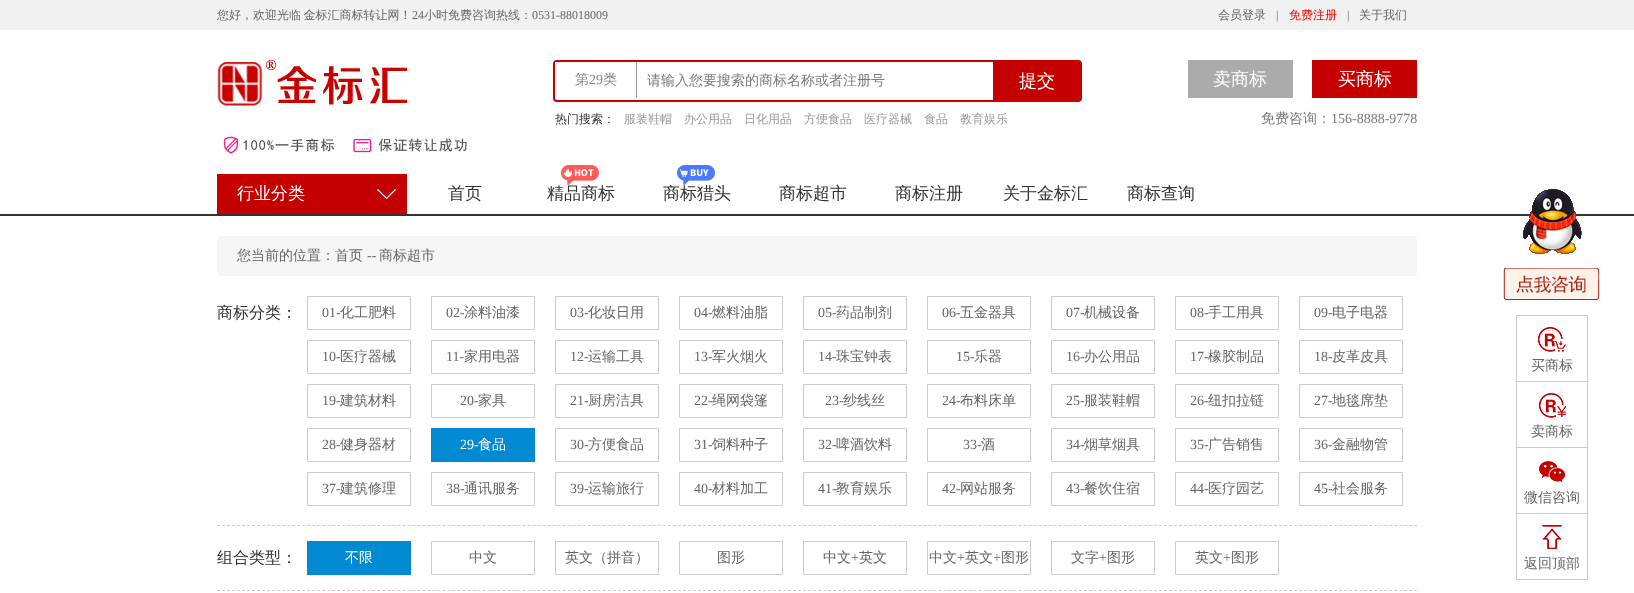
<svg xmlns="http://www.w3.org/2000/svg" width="1634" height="593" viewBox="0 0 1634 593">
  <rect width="100%" height="100%" fill="#fff"/>
  <path d="M0 0h1634v30H0z" fill="#f1f1f1"/>
  <image x="217" y="59" width="190" height="47" href="img/1.png"/>
  <image x="223" y="136" width="244" height="18" href="img/2.png"/>
  <rect x="554" y="61" width="527" height="40" rx="3" fill="none" stroke="#c40000" stroke-width="2"/>
  <path d="M555 62h2v2H555z" fill="#fff"/>
  <path d="M636 62h1v36H636z" fill="#999"/>
  <path d="M993 62h87v38H993z" fill="#c40000"/>
  <path d="M1188 60h105v38H1188z" fill="#ababab"/>
  <path d="M1312 60h105v38H1312z" fill="#c40000"/>
  <path d="M0 214h1634v2H0z" fill="#333"/>
  <path d="M217 174h190v40H217z" fill="#c40000"/>
  <image x="377" y="189" width="19" height="10" href="img/3.png"/>
  <rect x="217" y="236" width="1200" height="40" rx="4" fill="#f5f5f5"/>
  <path d="M217 525.5H1417" fill="none" stroke="#ccc" stroke-dasharray="3 2.01"/>
  <path d="M307.5 296.5h103v33H307.5z" fill="none" stroke="#ccc"/>
  <path d="M431.5 296.5h103v33H431.5z" fill="none" stroke="#ccc"/>
  <path d="M555.5 296.5h103v33H555.5z" fill="none" stroke="#ccc"/>
  <path d="M679.5 296.5h103v33H679.5z" fill="none" stroke="#ccc"/>
  <path d="M803.5 296.5h103v33H803.5z" fill="none" stroke="#ccc"/>
  <path d="M927.5 296.5h103v33H927.5z" fill="none" stroke="#ccc"/>
  <path d="M1051.5 296.5h103v33H1051.5z" fill="none" stroke="#ccc"/>
  <path d="M1175.5 296.5h103v33H1175.5z" fill="none" stroke="#ccc"/>
  <path d="M1299.5 296.5h103v33H1299.5z" fill="none" stroke="#ccc"/>
  <path d="M307.5 340.5h103v33H307.5z" fill="none" stroke="#ccc"/>
  <path d="M431.5 340.5h103v33H431.5z" fill="none" stroke="#ccc"/>
  <path d="M555.5 340.5h103v33H555.5z" fill="none" stroke="#ccc"/>
  <path d="M679.5 340.5h103v33H679.5z" fill="none" stroke="#ccc"/>
  <path d="M803.5 340.5h103v33H803.5z" fill="none" stroke="#ccc"/>
  <path d="M927.5 340.5h103v33H927.5z" fill="none" stroke="#ccc"/>
  <path d="M1051.5 340.5h103v33H1051.5z" fill="none" stroke="#ccc"/>
  <path d="M1175.5 340.5h103v33H1175.5z" fill="none" stroke="#ccc"/>
  <path d="M1299.5 340.5h103v33H1299.5z" fill="none" stroke="#ccc"/>
  <path d="M307.5 384.5h103v33H307.5z" fill="none" stroke="#ccc"/>
  <path d="M431.5 384.5h103v33H431.5z" fill="none" stroke="#ccc"/>
  <path d="M555.5 384.5h103v33H555.5z" fill="none" stroke="#ccc"/>
  <path d="M679.5 384.5h103v33H679.5z" fill="none" stroke="#ccc"/>
  <path d="M803.5 384.5h103v33H803.5z" fill="none" stroke="#ccc"/>
  <path d="M927.5 384.5h103v33H927.5z" fill="none" stroke="#ccc"/>
  <path d="M1051.5 384.5h103v33H1051.5z" fill="none" stroke="#ccc"/>
  <path d="M1175.5 384.5h103v33H1175.5z" fill="none" stroke="#ccc"/>
  <path d="M1299.5 384.5h103v33H1299.5z" fill="none" stroke="#ccc"/>
  <path d="M307.5 428.5h103v33H307.5z" fill="none" stroke="#ccc"/>
  <path d="M431 428h104v34H431z" fill="#0189d1"/>
  <path d="M555.5 428.5h103v33H555.5z" fill="none" stroke="#ccc"/>
  <path d="M679.5 428.5h103v33H679.5z" fill="none" stroke="#ccc"/>
  <path d="M803.5 428.5h103v33H803.5z" fill="none" stroke="#ccc"/>
  <path d="M927.5 428.5h103v33H927.5z" fill="none" stroke="#ccc"/>
  <path d="M1051.5 428.5h103v33H1051.5z" fill="none" stroke="#ccc"/>
  <path d="M1175.5 428.5h103v33H1175.5z" fill="none" stroke="#ccc"/>
  <path d="M1299.5 428.5h103v33H1299.5z" fill="none" stroke="#ccc"/>
  <path d="M307.5 472.5h103v33H307.5z" fill="none" stroke="#ccc"/>
  <path d="M431.5 472.5h103v33H431.5z" fill="none" stroke="#ccc"/>
  <path d="M555.5 472.5h103v33H555.5z" fill="none" stroke="#ccc"/>
  <path d="M679.5 472.5h103v33H679.5z" fill="none" stroke="#ccc"/>
  <path d="M803.5 472.5h103v33H803.5z" fill="none" stroke="#ccc"/>
  <path d="M927.5 472.5h103v33H927.5z" fill="none" stroke="#ccc"/>
  <path d="M1051.5 472.5h103v33H1051.5z" fill="none" stroke="#ccc"/>
  <path d="M1175.5 472.5h103v33H1175.5z" fill="none" stroke="#ccc"/>
  <path d="M1299.5 472.5h103v33H1299.5z" fill="none" stroke="#ccc"/>
  <path d="M217 590.5H1417" fill="none" stroke="#ccc" stroke-dasharray="3 2.01"/>
  <path d="M307 541h104v34H307z" fill="#0189d1"/>
  <path d="M431.5 541.5h103v33H431.5z" fill="none" stroke="#ccc"/>
  <path d="M555.5 541.5h103v33H555.5z" fill="none" stroke="#ccc"/>
  <path d="M679.5 541.5h103v33H679.5z" fill="none" stroke="#ccc"/>
  <path d="M803.5 541.5h103v33H803.5z" fill="none" stroke="#ccc"/>
  <path d="M927.5 541.5h103v33H927.5z" fill="none" stroke="#ccc"/>
  <path d="M1051.5 541.5h103v33H1051.5z" fill="none" stroke="#ccc"/>
  <path d="M1175.5 541.5h103v33H1175.5z" fill="none" stroke="#ccc"/>
  <image x="1503" y="189" width="97" height="111" href="img/6.png"/>
  <path d="M1516.5 315.5h71v264H1516.5z" fill="none" stroke="#ccc"/>
  <path d="M1517 381h70v1H1517z" fill="#ccc"/>
  <image x="1538" y="327" width="28" height="25" href="img/7.png"/>
  <path d="M1517 447h70v1H1517z" fill="#ccc"/>
  <image x="1539" y="393" width="27" height="25" href="img/8.png"/>
  <path d="M1517 513h70v1H1517z" fill="#ccc"/>
  <image x="1539" y="461" width="26" height="21" href="img/9.png"/>
  <image x="1542" y="525" width="20" height="24" href="img/10.png"/>
  <text x="217" y="19" word-spacing="-1" font-family="WenQuanYi Zen Hei" font-size="12" font-weight="500" fill="#666">您好，欢迎光临 金标汇商标转让网！</text>
  <text x="412" y="19" font-family="Liberation Serif" font-size="12" fill="#666">24</text>
  <text x="424" y="19" font-family="WenQuanYi Zen Hei" font-size="12" font-weight="500" fill="#666">小时免费咨询热线：</text>
  <text x="532" y="19" font-family="Liberation Serif" font-size="12" fill="#666">0531-88018009</text>
  <text x="1218" y="19" font-family="WenQuanYi Zen Hei" font-size="12" font-weight="500" fill="#666">会员登录</text>
  <text x="1276" y="19" font-family="Liberation Serif" font-size="12" fill="#666">|</text>
  <text x="1289" y="19" font-family="WenQuanYi Zen Hei" font-size="12" font-weight="500" fill="#f00">免费注册</text>
  <text x="1347" y="19" font-family="Liberation Serif" font-size="12" fill="#666">|</text>
  <text x="1359" y="19" font-family="WenQuanYi Zen Hei" font-size="12" font-weight="500" fill="#666">关于我们</text>
  <text x="575" y="84" font-family="WenQuanYi Zen Hei" font-size="14" font-weight="500" fill="#868686">第</text>
  <text x="589" y="84" font-family="Liberation Serif" font-size="14" fill="#868686">29</text>
  <text x="603" y="84" font-family="WenQuanYi Zen Hei" font-size="14" font-weight="500" fill="#868686">类</text>
  <text x="647" y="85" font-family="WenQuanYi Zen Hei" font-size="14" font-weight="500" fill="#7a7a7a">请输入您要搜索的商标名称或者注册号</text>
  <text x="1019" y="87" font-family="WenQuanYi Zen Hei" font-size="18" font-weight="500" fill="#fff">提交</text>
  <text x="555" y="123" font-family="WenQuanYi Zen Hei" font-size="12" font-weight="500" fill="#333">热门搜索：</text>
  <g font-family="WenQuanYi Zen Hei" font-size="12" font-weight="500" fill="#999">
    <text x="624" y="123">服装鞋帽</text>
    <text x="684" y="123">办公用品</text>
    <text x="744" y="123">日化用品</text>
    <text x="804" y="123">方便食品</text>
    <text x="864" y="123">医疗器械</text>
    <text x="924" y="123">食品</text>
    <text x="960" y="123">教育娱乐</text>
  </g>
  <g font-family="WenQuanYi Zen Hei" font-size="18" font-weight="500" fill="#fff">
    <text x="1213" y="85">卖商标</text>
    <text x="1338" y="85">买商标</text>
  </g>
  <text x="1261" y="123" font-family="WenQuanYi Zen Hei" font-size="14" font-weight="500" fill="#7a7a7a">免费咨询：</text>
  <text x="1331" y="123" font-family="Liberation Serif" font-size="14" fill="#7a7a7a">156-8888-9778</text>
  <text x="237" y="199" font-family="WenQuanYi Zen Hei" font-size="17" font-weight="500" fill="#fff">行业分类</text>
  <g font-family="WenQuanYi Zen Hei" font-size="17" font-weight="500" fill="#333">
    <text x="448" y="199">首页</text>
    <text x="547" y="199">精品商标</text>
  </g>
  <image x="561" y="165" width="38" height="20" href="img/4.png"/>
  <text x="663" y="199" font-family="WenQuanYi Zen Hei" font-size="17" font-weight="500" fill="#333">商标猎头</text>
  <image x="677" y="165" width="38" height="20" href="img/5.png"/>
  <g font-family="WenQuanYi Zen Hei" font-size="17" font-weight="500" fill="#333">
    <text x="779" y="199">商标超市</text>
    <text x="895" y="199">商标注册</text>
    <text x="1003" y="199">关于金标汇</text>
    <text x="1127" y="199">商标查询</text>
  </g>
  <text x="237" y="260" font-family="WenQuanYi Zen Hei" font-size="14" font-weight="500" fill="#666">您当前的位置：首页</text>
  <text x="367" y="260" font-family="Liberation Serif" font-size="14" fill="#666">--</text>
  <text x="379" y="260" font-family="WenQuanYi Zen Hei" font-size="14" font-weight="500" fill="#666">商标超市</text>
  <text x="217" y="318" font-family="WenQuanYi Zen Hei" font-size="16" font-weight="500" fill="#333">商标分类：</text>
  <text x="322" y="317" font-family="Liberation Serif" font-size="14" fill="#666">01-</text>
  <text x="340" y="317" font-family="WenQuanYi Zen Hei" font-size="14" font-weight="500" fill="#666">化工肥料</text>
  <text x="446" y="317" font-family="Liberation Serif" font-size="14" fill="#666">02-</text>
  <text x="464" y="317" font-family="WenQuanYi Zen Hei" font-size="14" font-weight="500" fill="#666">涂料油漆</text>
  <text x="570" y="317" font-family="Liberation Serif" font-size="14" fill="#666">03-</text>
  <text x="588" y="317" font-family="WenQuanYi Zen Hei" font-size="14" font-weight="500" fill="#666">化妆日用</text>
  <text x="694" y="317" font-family="Liberation Serif" font-size="14" fill="#666">04-</text>
  <text x="712" y="317" font-family="WenQuanYi Zen Hei" font-size="14" font-weight="500" fill="#666">燃料油脂</text>
  <text x="818" y="317" font-family="Liberation Serif" font-size="14" fill="#666">05-</text>
  <text x="836" y="317" font-family="WenQuanYi Zen Hei" font-size="14" font-weight="500" fill="#666">药品制剂</text>
  <text x="942" y="317" font-family="Liberation Serif" font-size="14" fill="#666">06-</text>
  <text x="960" y="317" font-family="WenQuanYi Zen Hei" font-size="14" font-weight="500" fill="#666">五金器具</text>
  <text x="1066" y="317" font-family="Liberation Serif" font-size="14" fill="#666">07-</text>
  <text x="1084" y="317" font-family="WenQuanYi Zen Hei" font-size="14" font-weight="500" fill="#666">机械设备</text>
  <text x="1190" y="317" font-family="Liberation Serif" font-size="14" fill="#666">08-</text>
  <text x="1208" y="317" font-family="WenQuanYi Zen Hei" font-size="14" font-weight="500" fill="#666">手工用具</text>
  <text x="1314" y="317" font-family="Liberation Serif" font-size="14" fill="#666">09-</text>
  <text x="1332" y="317" font-family="WenQuanYi Zen Hei" font-size="14" font-weight="500" fill="#666">电子电器</text>
  <text x="322" y="361" font-family="Liberation Serif" font-size="14" fill="#666">10-</text>
  <text x="340" y="361" font-family="WenQuanYi Zen Hei" font-size="14" font-weight="500" fill="#666">医疗器械</text>
  <text x="446" y="361" font-family="Liberation Serif" font-size="14" fill="#666">11-</text>
  <text x="464" y="361" font-family="WenQuanYi Zen Hei" font-size="14" font-weight="500" fill="#666">家用电器</text>
  <text x="570" y="361" font-family="Liberation Serif" font-size="14" fill="#666">12-</text>
  <text x="588" y="361" font-family="WenQuanYi Zen Hei" font-size="14" font-weight="500" fill="#666">运输工具</text>
  <text x="694" y="361" font-family="Liberation Serif" font-size="14" fill="#666">13-</text>
  <text x="712" y="361" font-family="WenQuanYi Zen Hei" font-size="14" font-weight="500" fill="#666">军火烟火</text>
  <text x="818" y="361" font-family="Liberation Serif" font-size="14" fill="#666">14-</text>
  <text x="836" y="361" font-family="WenQuanYi Zen Hei" font-size="14" font-weight="500" fill="#666">珠宝钟表</text>
  <text x="956" y="361" font-family="Liberation Serif" font-size="14" fill="#666">15-</text>
  <text x="974" y="361" font-family="WenQuanYi Zen Hei" font-size="14" font-weight="500" fill="#666">乐器</text>
  <text x="1066" y="361" font-family="Liberation Serif" font-size="14" fill="#666">16-</text>
  <text x="1084" y="361" font-family="WenQuanYi Zen Hei" font-size="14" font-weight="500" fill="#666">办公用品</text>
  <text x="1190" y="361" font-family="Liberation Serif" font-size="14" fill="#666">17-</text>
  <text x="1208" y="361" font-family="WenQuanYi Zen Hei" font-size="14" font-weight="500" fill="#666">橡胶制品</text>
  <text x="1314" y="361" font-family="Liberation Serif" font-size="14" fill="#666">18-</text>
  <text x="1332" y="361" font-family="WenQuanYi Zen Hei" font-size="14" font-weight="500" fill="#666">皮革皮具</text>
  <text x="322" y="405" font-family="Liberation Serif" font-size="14" fill="#666">19-</text>
  <text x="340" y="405" font-family="WenQuanYi Zen Hei" font-size="14" font-weight="500" fill="#666">建筑材料</text>
  <text x="460" y="405" font-family="Liberation Serif" font-size="14" fill="#666">20-</text>
  <text x="478" y="405" font-family="WenQuanYi Zen Hei" font-size="14" font-weight="500" fill="#666">家具</text>
  <text x="570" y="405" font-family="Liberation Serif" font-size="14" fill="#666">21-</text>
  <text x="588" y="405" font-family="WenQuanYi Zen Hei" font-size="14" font-weight="500" fill="#666">厨房洁具</text>
  <text x="694" y="405" font-family="Liberation Serif" font-size="14" fill="#666">22-</text>
  <text x="712" y="405" font-family="WenQuanYi Zen Hei" font-size="14" font-weight="500" fill="#666">绳网袋篷</text>
  <text x="825" y="405" font-family="Liberation Serif" font-size="14" fill="#666">23-</text>
  <text x="843" y="405" font-family="WenQuanYi Zen Hei" font-size="14" font-weight="500" fill="#666">纱线丝</text>
  <text x="942" y="405" font-family="Liberation Serif" font-size="14" fill="#666">24-</text>
  <text x="960" y="405" font-family="WenQuanYi Zen Hei" font-size="14" font-weight="500" fill="#666">布料床单</text>
  <text x="1066" y="405" font-family="Liberation Serif" font-size="14" fill="#666">25-</text>
  <text x="1084" y="405" font-family="WenQuanYi Zen Hei" font-size="14" font-weight="500" fill="#666">服装鞋帽</text>
  <text x="1190" y="405" font-family="Liberation Serif" font-size="14" fill="#666">26-</text>
  <text x="1208" y="405" font-family="WenQuanYi Zen Hei" font-size="14" font-weight="500" fill="#666">纽扣拉链</text>
  <text x="1314" y="405" font-family="Liberation Serif" font-size="14" fill="#666">27-</text>
  <text x="1332" y="405" font-family="WenQuanYi Zen Hei" font-size="14" font-weight="500" fill="#666">地毯席垫</text>
  <text x="322" y="449" font-family="Liberation Serif" font-size="14" fill="#666">28-</text>
  <text x="340" y="449" font-family="WenQuanYi Zen Hei" font-size="14" font-weight="500" fill="#666">健身器材</text>
  <text x="460" y="449" font-family="Liberation Serif" font-size="14" fill="#fff">29-</text>
  <text x="478" y="449" font-family="WenQuanYi Zen Hei" font-size="14" font-weight="500" fill="#fff">食品</text>
  <text x="570" y="449" font-family="Liberation Serif" font-size="14" fill="#666">30-</text>
  <text x="588" y="449" font-family="WenQuanYi Zen Hei" font-size="14" font-weight="500" fill="#666">方便食品</text>
  <text x="694" y="449" font-family="Liberation Serif" font-size="14" fill="#666">31-</text>
  <text x="712" y="449" font-family="WenQuanYi Zen Hei" font-size="14" font-weight="500" fill="#666">饲料种子</text>
  <text x="818" y="449" font-family="Liberation Serif" font-size="14" fill="#666">32-</text>
  <text x="836" y="449" font-family="WenQuanYi Zen Hei" font-size="14" font-weight="500" fill="#666">啤酒饮料</text>
  <text x="963" y="449" font-family="Liberation Serif" font-size="14" fill="#666">33-</text>
  <text x="981" y="449" font-family="WenQuanYi Zen Hei" font-size="14" font-weight="500" fill="#666">酒</text>
  <text x="1066" y="449" font-family="Liberation Serif" font-size="14" fill="#666">34-</text>
  <text x="1084" y="449" font-family="WenQuanYi Zen Hei" font-size="14" font-weight="500" fill="#666">烟草烟具</text>
  <text x="1190" y="449" font-family="Liberation Serif" font-size="14" fill="#666">35-</text>
  <text x="1208" y="449" font-family="WenQuanYi Zen Hei" font-size="14" font-weight="500" fill="#666">广告销售</text>
  <text x="1314" y="449" font-family="Liberation Serif" font-size="14" fill="#666">36-</text>
  <text x="1332" y="449" font-family="WenQuanYi Zen Hei" font-size="14" font-weight="500" fill="#666">金融物管</text>
  <text x="322" y="493" font-family="Liberation Serif" font-size="14" fill="#666">37-</text>
  <text x="340" y="493" font-family="WenQuanYi Zen Hei" font-size="14" font-weight="500" fill="#666">建筑修理</text>
  <text x="446" y="493" font-family="Liberation Serif" font-size="14" fill="#666">38-</text>
  <text x="464" y="493" font-family="WenQuanYi Zen Hei" font-size="14" font-weight="500" fill="#666">通讯服务</text>
  <text x="570" y="493" font-family="Liberation Serif" font-size="14" fill="#666">39-</text>
  <text x="588" y="493" font-family="WenQuanYi Zen Hei" font-size="14" font-weight="500" fill="#666">运输旅行</text>
  <text x="694" y="493" font-family="Liberation Serif" font-size="14" fill="#666">40-</text>
  <text x="712" y="493" font-family="WenQuanYi Zen Hei" font-size="14" font-weight="500" fill="#666">材料加工</text>
  <text x="818" y="493" font-family="Liberation Serif" font-size="14" fill="#666">41-</text>
  <text x="836" y="493" font-family="WenQuanYi Zen Hei" font-size="14" font-weight="500" fill="#666">教育娱乐</text>
  <text x="942" y="493" font-family="Liberation Serif" font-size="14" fill="#666">42-</text>
  <text x="960" y="493" font-family="WenQuanYi Zen Hei" font-size="14" font-weight="500" fill="#666">网站服务</text>
  <text x="1066" y="493" font-family="Liberation Serif" font-size="14" fill="#666">43-</text>
  <text x="1084" y="493" font-family="WenQuanYi Zen Hei" font-size="14" font-weight="500" fill="#666">餐饮住宿</text>
  <text x="1190" y="493" font-family="Liberation Serif" font-size="14" fill="#666">44-</text>
  <text x="1208" y="493" font-family="WenQuanYi Zen Hei" font-size="14" font-weight="500" fill="#666">医疗园艺</text>
  <text x="1314" y="493" font-family="Liberation Serif" font-size="14" fill="#666">45-</text>
  <text x="1332" y="493" font-family="WenQuanYi Zen Hei" font-size="14" font-weight="500" fill="#666">社会服务</text>
  <text x="217" y="563" font-family="WenQuanYi Zen Hei" font-size="16" font-weight="500" fill="#333">组合类型：</text>
  <text x="345" y="562" font-family="WenQuanYi Zen Hei" font-size="14" font-weight="500" fill="#fff">不限</text>
  <g font-family="WenQuanYi Zen Hei" font-size="14" font-weight="500" fill="#666">
    <text x="469" y="562">中文</text>
    <text x="565" y="562">英文（拼音）</text>
    <text x="717" y="562">图形</text>
    <text x="823" y="562">中文</text>
  </g>
  <text x="851" y="562" font-family="Liberation Serif" font-size="14" fill="#666">+</text>
  <g font-family="WenQuanYi Zen Hei" font-size="14" font-weight="500" fill="#666">
    <text x="859" y="562">英文</text>
    <text x="929" y="562">中文</text>
  </g>
  <text x="957" y="562" font-family="Liberation Serif" font-size="14" fill="#666">+</text>
  <text x="965" y="562" font-family="WenQuanYi Zen Hei" font-size="14" font-weight="500" fill="#666">英文</text>
  <text x="993" y="562" font-family="Liberation Serif" font-size="14" fill="#666">+</text>
  <g font-family="WenQuanYi Zen Hei" font-size="14" font-weight="500" fill="#666">
    <text x="1001" y="562">图形</text>
    <text x="1071" y="562">文字</text>
  </g>
  <text x="1099" y="562" font-family="Liberation Serif" font-size="14" fill="#666">+</text>
  <g font-family="WenQuanYi Zen Hei" font-size="14" font-weight="500" fill="#666">
    <text x="1107" y="562">图形</text>
    <text x="1195" y="562">英文</text>
  </g>
  <text x="1223" y="562" font-family="Liberation Serif" font-size="14" fill="#666">+</text>
  <g font-family="WenQuanYi Zen Hei" font-size="14" font-weight="500" fill="#666">
    <text x="1231" y="562">图形</text>
    <text x="1531" y="370">买商标</text>
    <text x="1531" y="436">卖商标</text>
    <text x="1524" y="502">微信咨询</text>
    <text x="1524" y="568">返回顶部</text>
  </g>
</svg>
